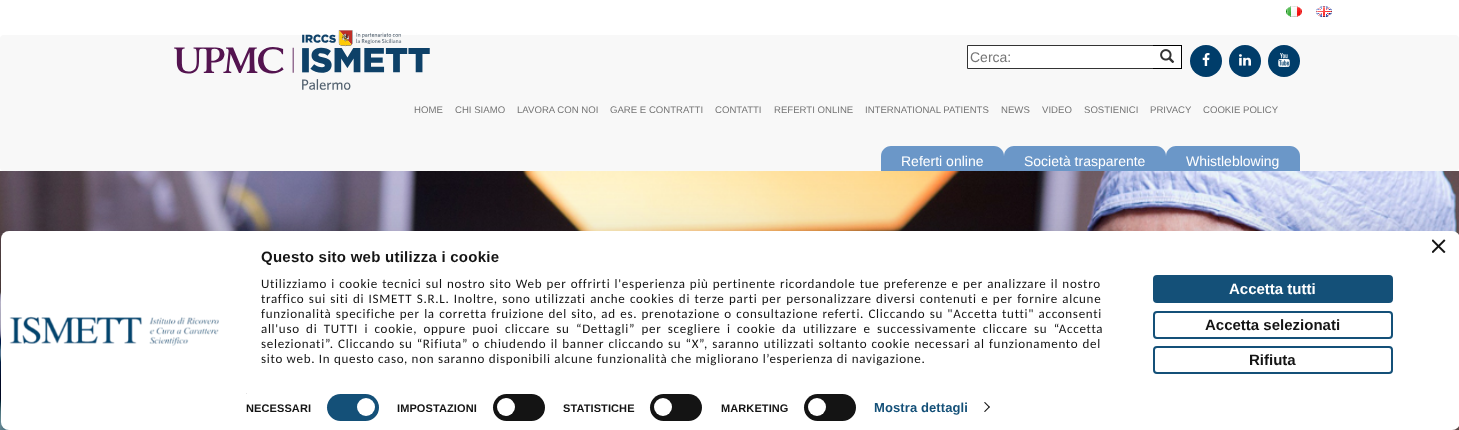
<svg xmlns="http://www.w3.org/2000/svg" width="1459" height="430" viewBox="0 0 1459 430">
  <defs>
    <clipPath id="clip1"><path d="M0 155H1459V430H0ZM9 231H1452C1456.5 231 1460 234.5 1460 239V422C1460 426.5 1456.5 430 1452 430H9C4.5 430 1 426.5 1 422V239C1 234.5 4.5 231 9 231Z" clip-rule="evenodd"/></clipPath>
  </defs>
  <rect width="100%" height="100%" fill="#fff"/>
  <image x="1286" y="6" width="16" height="11" href="img/1.png"/>
  <image x="1316" y="6" width="16" height="11" href="img/2.png"/>
  <rect y="35" width="1459" height="136" rx="4" fill="#f8f8f8"/>
  <image x="174" y="30" width="256" height="60" href="img/3.png"/>
  <path d="M967.5 45.5h186v23H967.5z" fill="#fff" stroke="#333"/>
  <path d="M1153 46h28v22H1153z" fill="#fff"/>
  <path d="M1153 45h29v1H1153z" fill="#000"/>
  <path d="M1181 45h1v24H1181z" fill="#000"/>
  <path d="M1153 68h29v1H1153z" fill="#000"/>
  <image x="1160" y="49" width="15" height="14" href="img/4.png"/>
  <circle cx="1206" cy="61" r="16" fill="#003d6a"/>
  <image x="1202" y="53" width="8" height="13" href="img/5.png"/>
  <circle cx="1245" cy="61" r="16" fill="#003d6a"/>
  <image x="1239" y="54" width="12" height="12" href="img/6.png"/>
  <circle cx="1284" cy="61" r="16" fill="#003d6a"/>
  <image x="1278" y="53" width="12" height="14" href="img/7.png"/>
  <path d="M891 146H994C999.5 146 1004 150.5 1004 156V171H881V156C881 150.5 885.5 146 891 146Z" fill="#6b97c8"/>
  <path d="M1014 146H1156C1161.5 146 1166 150.5 1166 156V171H1004V156C1004 150.5 1008.5 146 1014 146Z" fill="#6b97c8"/>
  <path d="M1176 146H1290C1295.5 146 1300 150.5 1300 156V171H1166V156C1166 150.5 1170.5 146 1176 146Z" fill="#6b97c8"/>
  <image x="0" y="171" width="1459" height="259" href="img/8.png"/>
  <g clip-path="url(#clip1)">
    <rect x="1" y="261" width="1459" height="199" rx="8" fill="#0000004d" filter="blur(35px)"/>
  </g>
  <rect x="1" y="231" width="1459" height="199" rx="8" fill="#fff"/>
  <image x="1432" y="239" width="14" height="14" href="img/9.png"/>
  <image x="9" y="316" width="210" height="30" href="img/10.png"/>
  <path d="M246 393h1v1H246z" fill="#e5e5e5"/>
  <rect x="327" y="394" width="52" height="27" rx="13.5" fill="#145078"/>
  <circle cx="366" cy="407" r="9" fill="#fff"/>
  <rect x="493" y="394" width="52" height="27" rx="13.5" fill="#141414"/>
  <circle cx="506" cy="407" r="9" fill="#fff"/>
  <rect x="650" y="394" width="52" height="27" rx="13.5" fill="#141414"/>
  <circle cx="663" cy="407" r="9" fill="#fff"/>
  <rect x="804" y="394" width="52" height="27" rx="13.5" fill="#141414"/>
  <circle cx="817" cy="407" r="9" fill="#fff"/>
  <path d="M985 402L990 407L989 407.5L984 402.5Z" fill="#141414"/>
  <path d="M989 406.5L990 407L985 412L984 411.5Z" fill="#141414"/>
  <rect x="1154" y="276" width="238" height="26" rx="3" fill="#145078" stroke="#145078" stroke-width="2"/>
  <rect x="1154" y="312" width="238" height="26" rx="3" fill="none" stroke="#145078" stroke-width="2"/>
  <rect x="1154" y="347" width="238" height="26" rx="3" fill="none" stroke="#145078" stroke-width="2"/>
  <text x="970" y="62" font-family="Liberation Sans" font-size="14" fill="#757575">Cerca:</text>
  <g font-family="Liberation Sans" font-size="9.6" fill="#757575">
    <text x="414" y="113">HOME</text>
    <text x="455" y="113">CHI SIAMO</text>
    <text x="517" y="113">LAVORA CON NOI</text>
    <text x="610" y="113">GARE E CONTRATTI</text>
    <text x="715" y="113">CONTATTI</text>
    <text x="774" y="113">REFERTI ONLINE</text>
    <text x="865" y="113">INTERNATIONAL PATIENTS</text>
    <text x="1001" y="113">NEWS</text>
    <text x="1042" y="113">VIDEO</text>
    <text x="1084" y="113">SOSTIENICI</text>
    <text x="1150" y="113">PRIVACY</text>
    <text x="1203" y="113">COOKIE POLICY</text>
  </g>
  <g font-family="Liberation Sans" font-size="14" fill="#fff">
    <text x="901" y="166">Referti online</text>
    <text x="1024" y="166">Società trasparente</text>
    <text x="1186" y="166">Whistleblowing</text>
  </g>
  <text x="261" y="262" font-family="Liberation Sans" font-size="15" font-weight="bold" letter-spacing="0.25" fill="#141414">Questo sito web utilizza i cookie</text>
  <g font-family="Carlito" font-size="13" letter-spacing="0.7" fill="#141414">
    <text x="261" y="288" word-spacing="0.6">Utilizziamo i cookie tecnici sul nostro sito Web per offrirti l'esperienza più pertinente ricordandole tue preferenze e per analizzare il nostro</text>
    <text x="261" y="303" word-spacing="0.8">traffico sui siti di ISMETT S.R.L. Inoltre, sono utilizzati anche cookies di terze parti per personalizzare diversi contenuti e per fornire alcune</text>
    <text x="261" y="318" word-spacing="0.75">funzionalità specifiche per la corretta fruizione del sito, ad es. prenotazione o consultazione referti. Cliccando su "Accetta tutti" acconsenti</text>
    <text x="261" y="333" word-spacing="2.75">all'uso di TUTTI i cookie, oppure puoi cliccare su “Dettagli” per scegliere i cookie da utilizzare e successivamente cliccare su “Accetta</text>
    <text x="261" y="348" word-spacing="0.6">selezionati”. Cliccando su “Rifiuta” o chiudendo il banner cliccando su “X”, saranno utilizzati soltanto cookie necessari al funzionamento del</text>
    <text x="261" y="363">sito web. In questo caso, non saranno disponibili alcune funzionalità che migliorano l’esperienza di navigazione.</text>
  </g>
  <g font-family="Liberation Sans" font-size="11" font-weight="bold" letter-spacing="0.1" fill="#141414">
    <text x="246" y="412">NECESSARI</text>
    <text x="397" y="412">IMPOSTAZIONI</text>
    <text x="563" y="412">STATISTICHE</text>
    <text x="721" y="412">MARKETING</text>
  </g>
  <text x="874" y="412" font-family="Liberation Sans" font-size="13" font-weight="bold" letter-spacing="0.1" fill="#145078">Mostra dettagli</text>
  <text x="1229" y="294" font-family="Liberation Sans" font-size="15" font-weight="bold" fill="#fff">Accetta tutti</text>
  <g font-family="Liberation Sans" font-size="15" font-weight="bold" fill="#141414">
    <text x="1205" y="330">Accetta selezionati</text>
    <text x="1249" y="365">Rifiuta</text>
  </g>
</svg>
